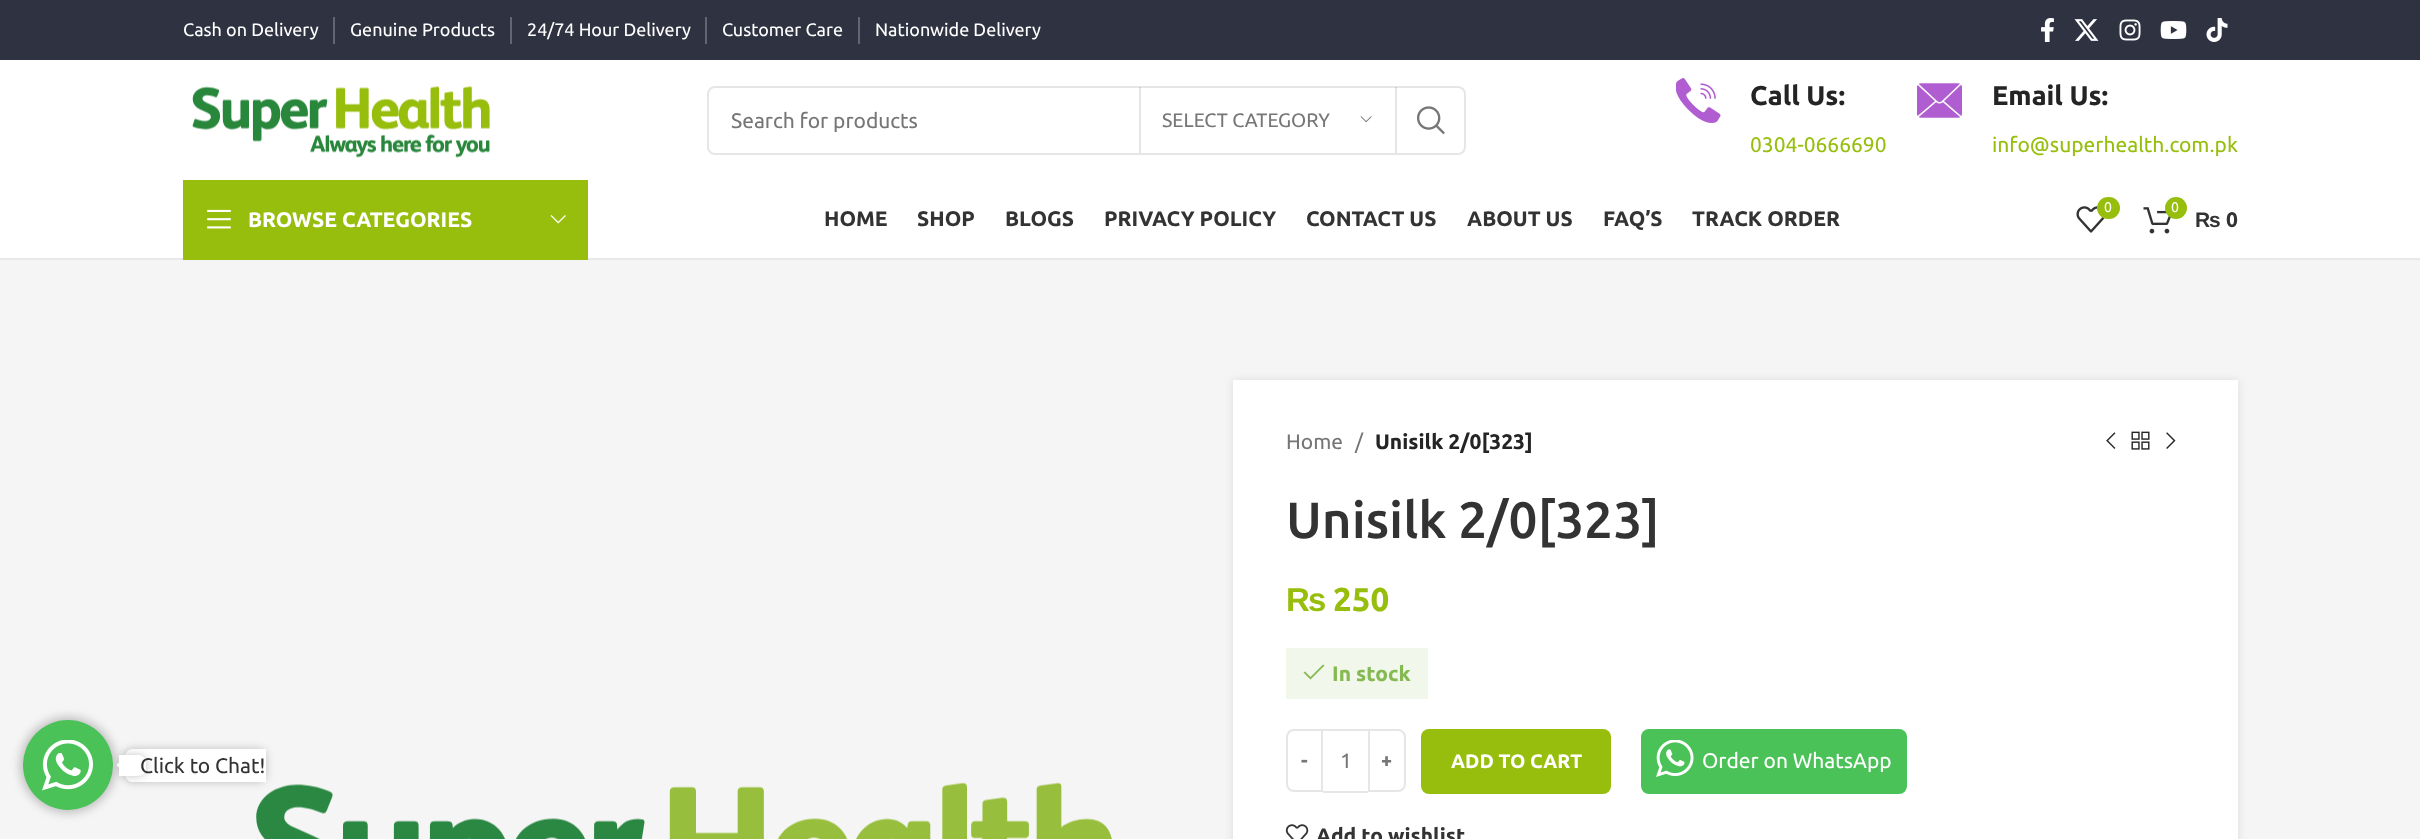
<svg xmlns="http://www.w3.org/2000/svg" width="2420" height="839" viewBox="0 0 2420 839">
  <rect width="100%" height="100%" fill="#fff"/>
  <path d="M0 0h2420v60H0z" fill="#2f3241"/>
  <path d="M333 17h2v27H333z" fill="#636571"/>
  <path d="M510 17h2v27H510z" fill="#636571"/>
  <path d="M705 17h2v27H705z" fill="#636571"/>
  <path d="M858 17h2v27H858z" fill="#636571"/>
  <image x="2041" y="18" width="13" height="24" href="img/1.png"/>
  <image x="2074" y="19" width="25" height="22" href="img/2.png"/>
  <image x="2119" y="19" width="22" height="22" href="img/3.png"/>
  <image x="2160" y="21" width="27" height="18" href="img/4.png"/>
  <image x="2206" y="18" width="22" height="24" href="img/5.png"/>
  <image x="192" y="86" width="298" height="72" href="img/6.png"/>
  <rect x="708" y="87" width="757" height="67" rx="7" fill="none" stroke="#e6e6e6" stroke-width="2"/>
  <path d="M1395 87h2v66H1395z" fill="#0000001a"/>
  <path d="M1139 87h2v66H1139z" fill="#0000001a"/>
  <image x="1360" y="116" width="12" height="7" href="img/7.png"/>
  <image x="1417" y="106" width="28" height="29" href="img/8.png"/>
  <image x="1676" y="78" width="45" height="45" href="img/9.png"/>
  <image x="1917" y="83" width="45" height="35" href="img/10.png"/>
  <path d="M0 258h2420v2H0z" fill="#e8e8e8"/>
  <path d="M183 180h405v80H183z" fill="#97be0d"/>
  <image x="207" y="209" width="24" height="20" href="img/11.png"/>
  <image x="550" y="215" width="16" height="9" href="img/12.png"/>
  <image x="2076" y="206" width="29" height="27" href="img/13.png"/>
  <rect x="2097" y="197" width="23" height="22" rx="11" fill="#97be0d"/>
  <image x="2143" y="207" width="28" height="27" href="img/14.png"/>
  <circle cx="2176" cy="208" r="11" fill="#97be0d"/>
  <path d="M0 260h2420v579H0z" fill="#f5f5f5"/>
  <image x="256" y="782" width="856" height="57" href="img/15.png"/>
  <path d="M1233 380h1005v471H1233z" fill="#0000001a" filter="blur(4px)"/>
  <path d="M1233 380h1005v459H1233z" fill="#fff"/>
  <image x="2106" y="432" width="10" height="17" href="img/16.png"/>
  <image x="2131" y="431" width="19" height="19" href="img/17.png"/>
  <image x="2166" y="432" width="10" height="17" href="img/18.png"/>
  <path d="M1286 648h142v51H1286z" fill="#f1f7eb"/>
  <path d="M1324.5 665.5L1323 664.5L1310.5 677L1305 671.5L1303.5 672.5L1310.5 679.5Z" fill="#85b951"/>
  <path d="M1294 730H1322V791H1294C1290 791 1287 788 1287 784V737C1287 733 1290 730 1294 730Z" fill="none" stroke="#e6e6e6" stroke-width="2"/>
  <path d="M1323 729h45v2H1323z" fill="#e6e6e6"/>
  <path d="M1323 791h45v2H1323z" fill="#e6e6e6"/>
  <path d="M1369 730H1398C1402 730 1405 733 1405 737V784C1405 788 1402 791 1398 791H1369Z" fill="none" stroke="#e6e6e6" stroke-width="2"/>
  <rect x="1421" y="729" width="190" height="65" rx="8" fill="#97be0d"/>
  <rect x="1641" y="729" width="266" height="65" rx="8" fill="#4ac258"/>
  <image x="1656" y="740" width="38" height="37" href="img/19.png"/>
  <image x="1285" y="824" width="24" height="15" href="img/20.png"/>
  <rect x="20" y="717" width="96" height="96" rx="48" fill="#88888880" filter="blur(5px)"/>
  <circle cx="68" cy="765" r="45" fill="#4ac258"/>
  <image x="42" y="740" width="51" height="51" href="img/21.png"/>
  <rect x="125" y="749" width="141" height="33" rx="8" fill="#88888880" filter="blur(4px)"/>
  <path d="M133 749H266V782H133C128.5 782 125 778.5 125 774V757C125 752.5 128.5 749 133 749Z" fill="#fff"/>
  <rect x="119" y="755" width="27" height="21" rx="8" fill="#88888880" filter="blur(4px)"/>
  <path d="M119 755H138C142.5 755 146 758.5 146 763V768C146 772.5 142.5 776 138 776H119Z" fill="#fff"/>
  <path d="M116.5 765L125 756.5L133.5 765L125 773.5Z" fill="#fff"/>
  <g font-family="Ubuntu" font-size="18" fill="#fff">
    <text x="183" y="36">Cash on Delivery</text>
    <text x="350" y="36">Genuine Products</text>
    <text x="527" y="36">24/74 Hour Delivery</text>
    <text x="722" y="36">Customer Care</text>
    <text x="875" y="36">Nationwide Delivery</text>
  </g>
  <text x="731" y="128" font-family="Ubuntu" font-size="21" fill="#767676">Search for products</text>
  <text x="1162" y="127" font-family="Ubuntu" font-size="19.5" fill="#767676">SELECT CATEGORY</text>
  <text x="1750" y="105" font-family="Ubuntu" font-size="27" font-weight="bold" fill="#242424">Call Us:</text>
  <text x="1750" y="152" font-family="Ubuntu" font-size="21" fill="#97be0d">0304-0666690</text>
  <text x="1992" y="105" font-family="Ubuntu" font-size="27" font-weight="bold" fill="#242424">Email Us:</text>
  <text x="1992" y="152" font-family="Ubuntu" font-size="21" fill="#97be0d">info@superhealth.com.pk</text>
  <text x="248" y="227" font-family="Ubuntu" font-size="21" font-weight="bold" fill="#fff">BROWSE CATEGORIES</text>
  <g font-family="Ubuntu" font-size="21" font-weight="bold" fill="#333">
    <text x="824" y="226">HOME</text>
    <text x="917" y="226">SHOP</text>
    <text x="1005" y="226">BLOGS</text>
    <text x="1104" y="226">PRIVACY POLICY</text>
    <text x="1306" y="226">CONTACT US</text>
    <text x="1467" y="226">ABOUT US</text>
    <text x="1603" y="226">FAQ’S</text>
    <text x="1692" y="226">TRACK ORDER</text>
  </g>
  <g font-family="Ubuntu" font-size="14" fill="#fff">
    <text x="2104" y="212">0</text>
    <text x="2171" y="212">0</text>
  </g>
  <text x="2195" y="227" font-family="Liberation Sans" font-size="21" font-weight="bold" fill="#333">₨</text>
  <text x="2226" y="227" font-family="Ubuntu" font-size="21" font-weight="bold" fill="#333">0</text>
  <g font-family="Ubuntu" font-size="21" fill="#767676">
    <text x="1286" y="449">Home</text>
    <text x="1355" y="449">/</text>
  </g>
  <text x="1375" y="449" font-family="Ubuntu" font-size="21" font-weight="bold" fill="#242424">Unisilk 2/0[323]</text>
  <text x="1286" y="538" font-family="Ubuntu" font-size="51" font-weight="500" fill="#333">Unisilk 2/0[323]</text>
  <text x="1286" y="611" font-family="Liberation Sans" font-size="33" font-weight="bold" fill="#97be0d">₨</text>
  <text x="1333" y="611" font-family="Ubuntu" font-size="33" font-weight="bold" fill="#97be0d">250</text>
  <text x="1332" y="681" font-family="Ubuntu" font-size="21" font-weight="bold" fill="#85b951">In stock</text>
  <text x="1301" y="767" font-family="Ubuntu" font-size="19.5" font-weight="bold" fill="#767676">-</text>
  <text x="1340" y="768" font-family="Ubuntu" font-size="21" fill="#767676">1</text>
  <text x="1381" y="767" font-family="Ubuntu" font-size="19.5" font-weight="bold" fill="#767676">+</text>
  <text x="1451" y="768" font-family="Ubuntu" font-size="19.5" font-weight="bold" fill="#fff">ADD TO CART</text>
  <text x="1702" y="768" font-family="Ubuntu" font-size="21" fill="#fff">Order on WhatsApp</text>
  <text x="1316" y="843" font-family="Ubuntu" font-size="21" font-weight="bold" fill="#333">Add to wishlist</text>
  <text x="140" y="773" font-family="Ubuntu" font-size="21" fill="#333">Click to Chat!</text>
</svg>
